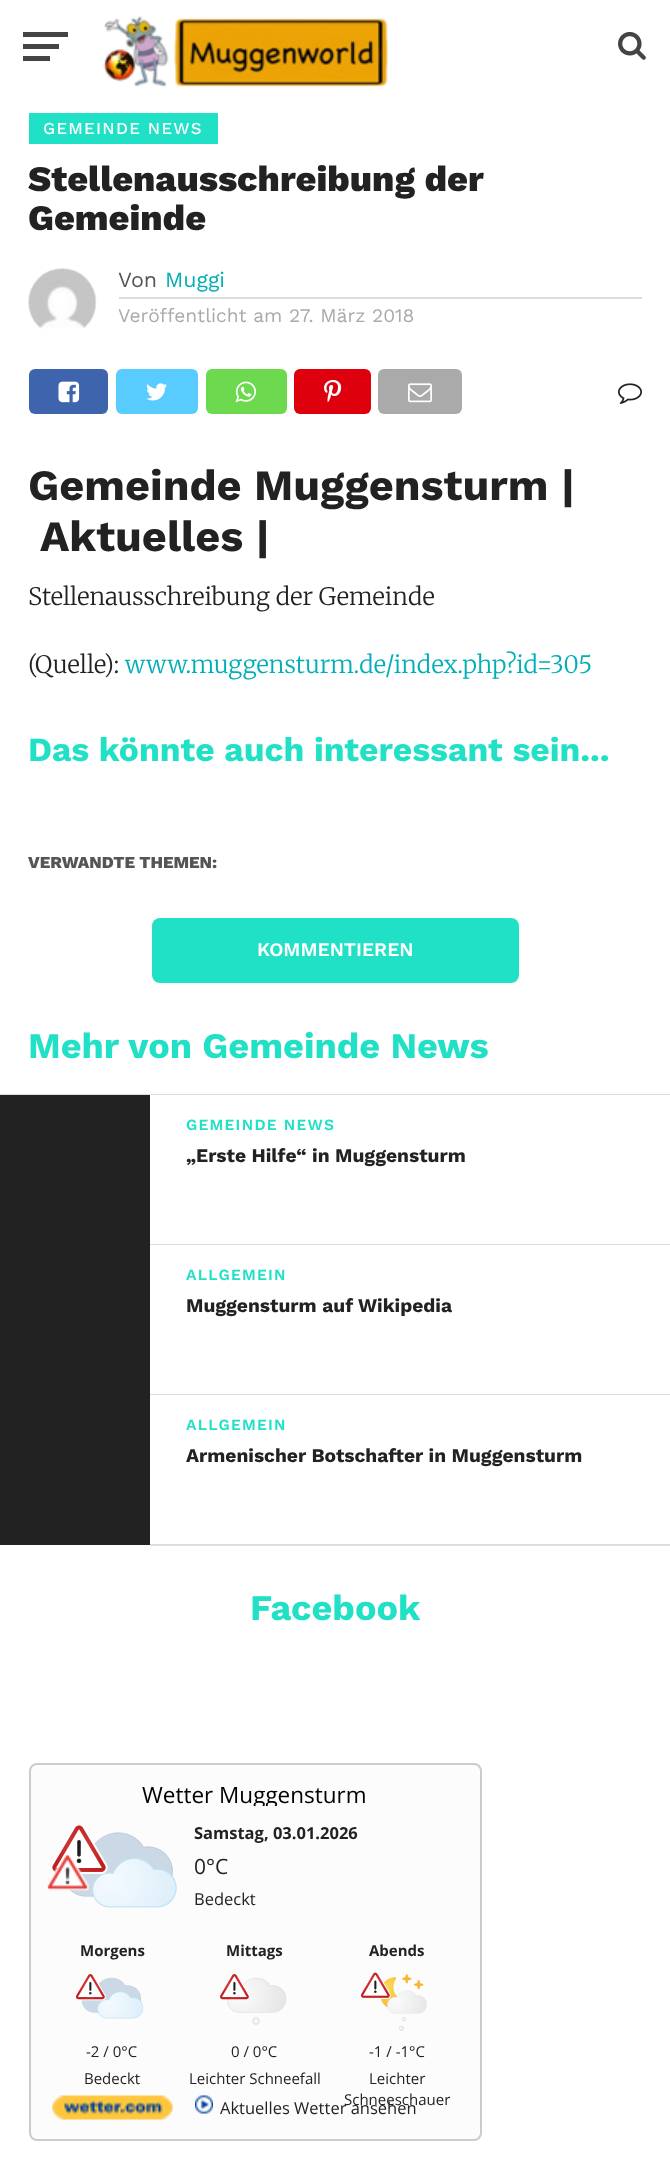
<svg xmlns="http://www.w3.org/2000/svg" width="670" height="2183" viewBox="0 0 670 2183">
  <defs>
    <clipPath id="clip1"><path d="M45 1779h420v27H45z"/></clipPath>
  </defs>
  <rect width="100%" height="100%" fill="#fff"/>
  <path d="M23 32h45v5H23z" fill="#444"/>
  <path d="M23 44h36v5H23z" fill="#444"/>
  <path d="M23 56h27v5H23z" fill="#444"/>
  <image x="103" y="16" width="286" height="72" href="img/1.png"/>
  <image x="618" y="31" width="28" height="29" href="img/2.png"/>
  <path d="M29 113h189v31H29z" fill="#20e0c6"/>
  <image x="28" y="268" width="69" height="61" href="img/3.png"/>
  <path d="M119 297h523v2H119z" fill="#ddd"/>
  <rect x="29" y="369" width="79" height="45" rx="6" fill="#3e64ad"/>
  <image x="58" y="381" width="22" height="22" href="img/4.png"/>
  <rect x="116" y="369" width="82" height="45" rx="6" fill="#58ccff"/>
  <image x="146" y="383" width="21" height="18" href="img/5.png"/>
  <rect x="206" y="369" width="81" height="45" rx="6" fill="#6cd94e"/>
  <image x="235" y="381" width="22" height="22" href="img/6.png"/>
  <rect x="294" y="369" width="77" height="45" rx="6" fill="#de010d"/>
  <image x="324" y="379" width="18" height="24" href="img/7.png"/>
  <rect x="378" y="369" width="84" height="45" rx="6" fill="#aaa"/>
  <image x="408" y="383" width="24" height="20" href="img/8.png"/>
  <image x="618" y="383" width="24" height="21" href="img/9.png"/>
  <rect x="152" y="918" width="367" height="65" rx="8" fill="#20e0c6"/>
  <path d="M0 1094h670v1H0z" fill="#ddd"/>
  <path d="M0 1095h150v450H0z" fill="#222"/>
  <path d="M150 1244h520v1H150z" fill="#ddd"/>
  <path d="M150 1394h520v1H150z" fill="#ddd"/>
  <path d="M150 1544h520v2H150z" fill="#ddd"/>
  <rect x="30" y="1764" width="451" height="376" rx="7" fill="#fcfcfc" stroke="#ccc" stroke-width="2"/>
  <image x="52" y="1825" width="125" height="83" href="img/10.png"/>
  <image x="47" y="1853" width="42" height="38" href="img/11.png"/>
  <image x="75" y="1973" width="69" height="46" href="img/12.png"/>
  <image x="219" y="1973" width="68" height="52" href="img/13.png"/>
  <image x="361" y="1972" width="66" height="59" href="img/14.png"/>
  <image x="52" y="2095" width="121" height="25" href="img/15.png"/>
  <image x="195" y="2095" width="18" height="19" href="img/16.png"/>
  <text x="43" y="134" font-family="Work Sans" font-size="16.75" font-weight="500" letter-spacing="1.25" fill="#fff">GEMEINDE NEWS</text>
  <g font-family="Work Sans" font-size="36" font-weight="800" fill="#222">
    <text x="28" y="191">Stellenausschreibung der</text>
    <text x="28" y="230">Gemeinde</text>
  </g>
  <text x="118" y="287" font-family="Work Sans" font-size="21.5" fill="#555">Von</text>
  <text x="165" y="287" font-family="Work Sans" font-size="21.5" fill="#00afb5">Muggi</text>
  <text x="118" y="322" font-family="Work Sans" font-size="19.2" fill="#aaa">Veröffentlicht am 27. März 2018</text>
  <g font-family="Work Sans" font-size="43.25" font-weight="bold" fill="#222">
    <text x="28" y="500">Gemeinde Muggensturm |</text>
    <text x="40" y="551">Aktuelles |</text>
  </g>
  <g font-family="Merriweather" font-size="24" font-weight="300" fill="#222">
    <text x="28" y="605">Stellenausschreibung der Gemeinde</text>
    <text x="28" y="673">(Quelle):</text>
  </g>
  <text x="125" y="673" font-family="Merriweather" font-size="24" font-weight="300" fill="#00afb5">www.muggensturm.de/index.php?id=305</text>
  <text x="28" y="761" font-family="Work Sans" font-size="33.6" font-weight="bold" fill="#20e0c6">Das könnte auch interessant sein...</text>
  <text x="28" y="868" font-family="Work Sans" font-size="16.75" font-weight="800" fill="#555">VERWANDTE THEMEN:</text>
  <text x="257" y="956" font-family="Work Sans" font-size="19.2" font-weight="600" fill="#fff">KOMMENTIEREN</text>
  <text x="28" y="1058" font-family="Work Sans" font-size="36" font-weight="bold" fill="#20e0c6">Mehr von Gemeinde News</text>
  <text x="186" y="1130" font-family="Work Sans" font-size="15.5" font-weight="600" letter-spacing="1.25" fill="#20e0c6">GEMEINDE NEWS</text>
  <text x="186" y="1162" font-family="Work Sans" font-size="19.2" font-weight="bold" fill="#222">„Erste Hilfe“ in Muggensturm</text>
  <text x="186" y="1280" font-family="Work Sans" font-size="15.5" font-weight="600" letter-spacing="1.25" fill="#20e0c6">ALLGEMEIN</text>
  <text x="186" y="1312" font-family="Work Sans" font-size="19.2" font-weight="bold" fill="#222">Muggensturm auf Wikipedia</text>
  <text x="186" y="1430" font-family="Work Sans" font-size="15.5" font-weight="600" letter-spacing="1.25" fill="#20e0c6">ALLGEMEIN</text>
  <text x="186" y="1462" font-family="Work Sans" font-size="19.2" font-weight="bold" fill="#222">Armenischer Botschafter in Muggensturm</text>
  <text x="250" y="1620" font-family="Work Sans" font-size="36" font-weight="bold" fill="#20e0c6">Facebook</text>
  <g clip-path="url(#clip1)">
    <text x="142" y="1803" font-family="Open Sans" font-size="22.5" fill="#000">Wetter Muggensturm</text>
  </g>
  <text x="194" y="1839" font-family="Open Sans" font-size="16.5" font-weight="bold" fill="#222">Samstag, 03.01.2026</text>
  <text x="194" y="1874" font-family="Open Sans" font-size="21" fill="#222">0°C</text>
  <text x="194" y="1905" font-family="Open Sans" font-size="16.5" fill="#222">Bedeckt</text>
  <text x="80" y="1956" font-family="Open Sans" font-size="15" font-weight="bold" fill="#222">Morgens</text>
  <g font-family="Open Sans" font-size="15" fill="#222">
    <text x="86" y="2057">-2 / 0°C</text>
    <text x="84" y="2084">Bedeckt</text>
  </g>
  <text x="226" y="1956" font-family="Open Sans" font-size="15" font-weight="bold" fill="#222">Mittags</text>
  <g font-family="Open Sans" font-size="15" fill="#222">
    <text x="231" y="2057">0 / 0°C</text>
    <text x="189" y="2084">Leichter Schneefall</text>
  </g>
  <text x="369" y="1956" font-family="Open Sans" font-size="15" font-weight="bold" fill="#222">Abends</text>
  <g font-family="Open Sans" font-size="15" fill="#222">
    <text x="369" y="2057">-1 / -1°C</text>
    <text x="369" y="2084">Leichter</text>
    <text x="344" y="2105">Schneeschauer</text>
  </g>
  <text x="220" y="2114" font-family="Open Sans" font-size="16.5" fill="#222">Aktuelles Wetter ansehen</text>
</svg>
